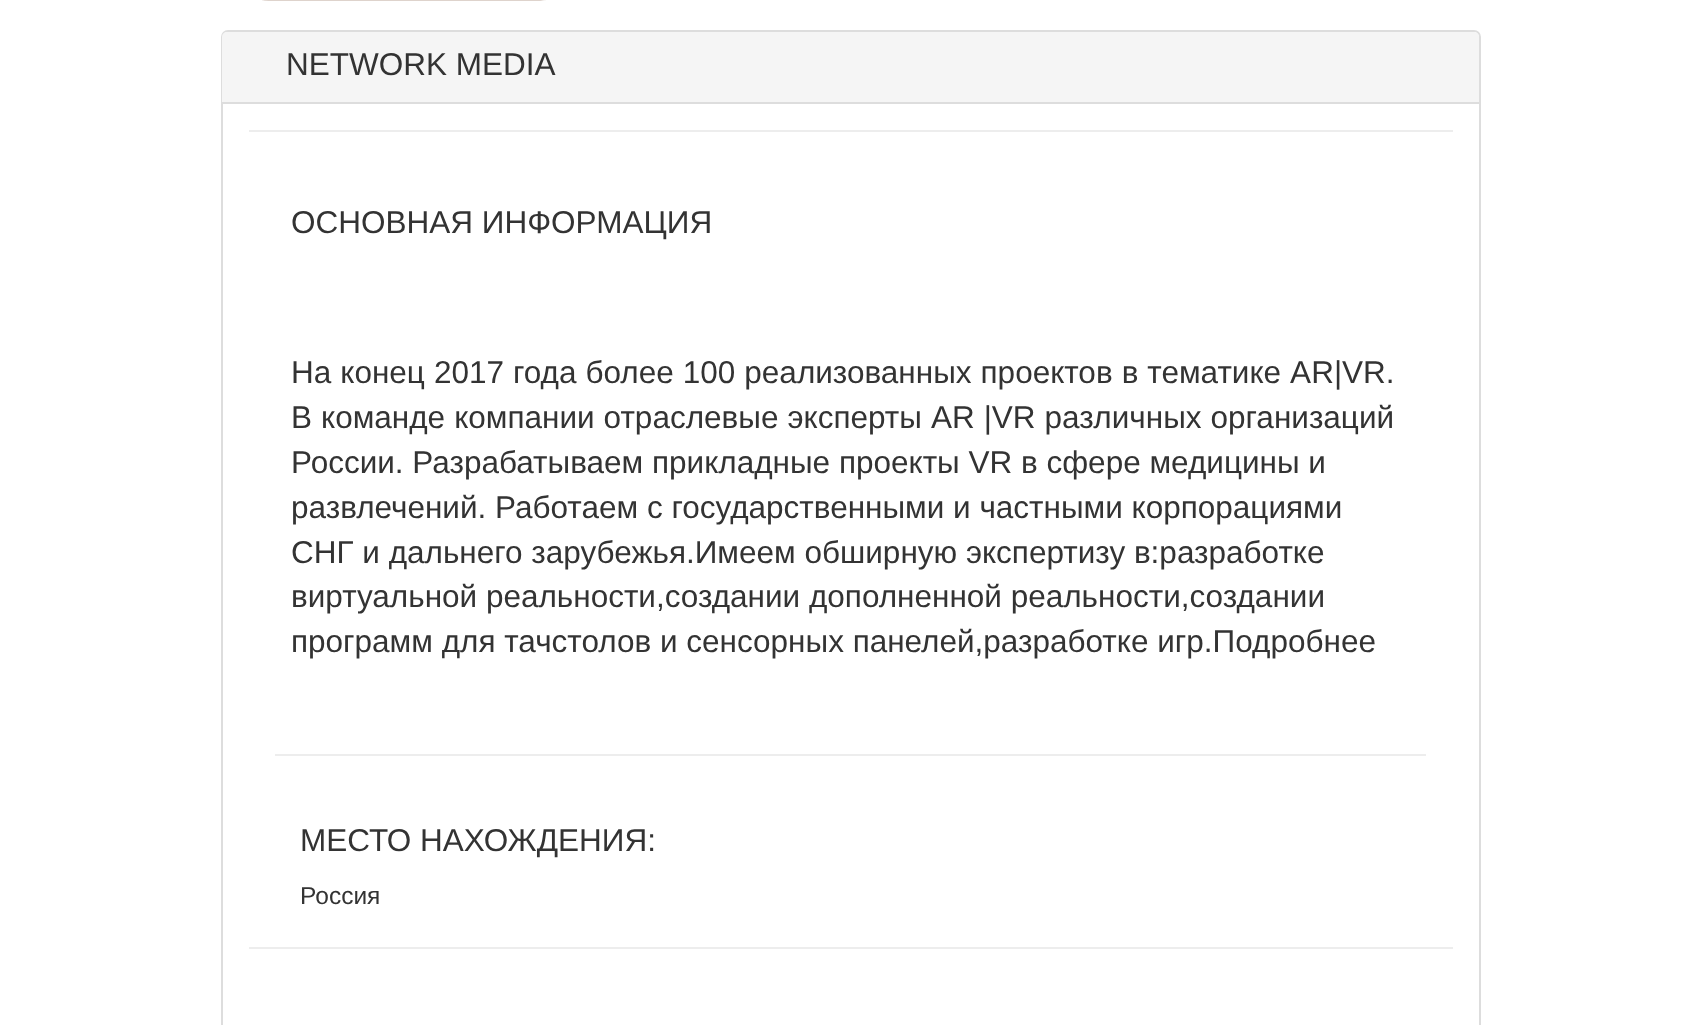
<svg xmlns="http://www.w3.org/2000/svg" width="1698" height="1025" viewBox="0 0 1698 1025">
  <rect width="100%" height="100%" fill="#fff"/>
  <image x="262" y="0" width="284" height="1" href="img/1.png"/>
  <rect x="222" y="31" width="1258" height="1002" rx="6" fill="none" stroke="#ddd" stroke-width="2"/>
  <path d="M227 32H1474C1477 32 1479 34 1479 37V103H222V37C222 34 224 32 227 32Z" fill="#f5f5f5"/>
  <path d="M222 102h1257v2H222z" fill="#ddd"/>
  <path d="M249 130h1204v2H249z" fill="#ededed"/>
  <path d="M275 754h1151v2H275z" fill="#ededed"/>
  <path d="M249 947h1204v2H249z" fill="#ededed"/>
  <g font-family="Liberation Sans" font-size="31.5" fill="#333">
    <text x="286" y="75">NETWORK MEDIA</text>
    <text x="291" y="233">ОСНОВНАЯ ИНФОРМАЦИЯ</text>
    <text x="291" y="383" word-spacing="0.25">На конец 2017 года более 100 реализованных проектов в тематике AR|VR.</text>
    <text x="291" y="428" word-spacing="0.25">В команде компании отраслевые эксперты AR |VR различных организаций</text>
    <text x="291" y="473">России. Разрабатываем прикладные проекты VR в сфере медицины и</text>
    <text x="291" y="518">развлечений. Работаем с государственными и частными корпорациями</text>
    <text x="291" y="563">СНГ и дальнего зарубежья.Имеем обширную экспертизу в:разработке</text>
    <text x="291" y="607">виртуальной реальности,создании дополненной реальности,создании</text>
    <text x="291" y="652">программ для тачстолов и сенсорных панелей,разработке игр.Подробнее</text>
    <text x="300" y="851">МЕСТО НАХОЖДЕНИЯ:</text>
  </g>
  <text x="300" y="904" font-family="Liberation Sans" font-size="24.5" fill="#333">Россия</text>
</svg>
